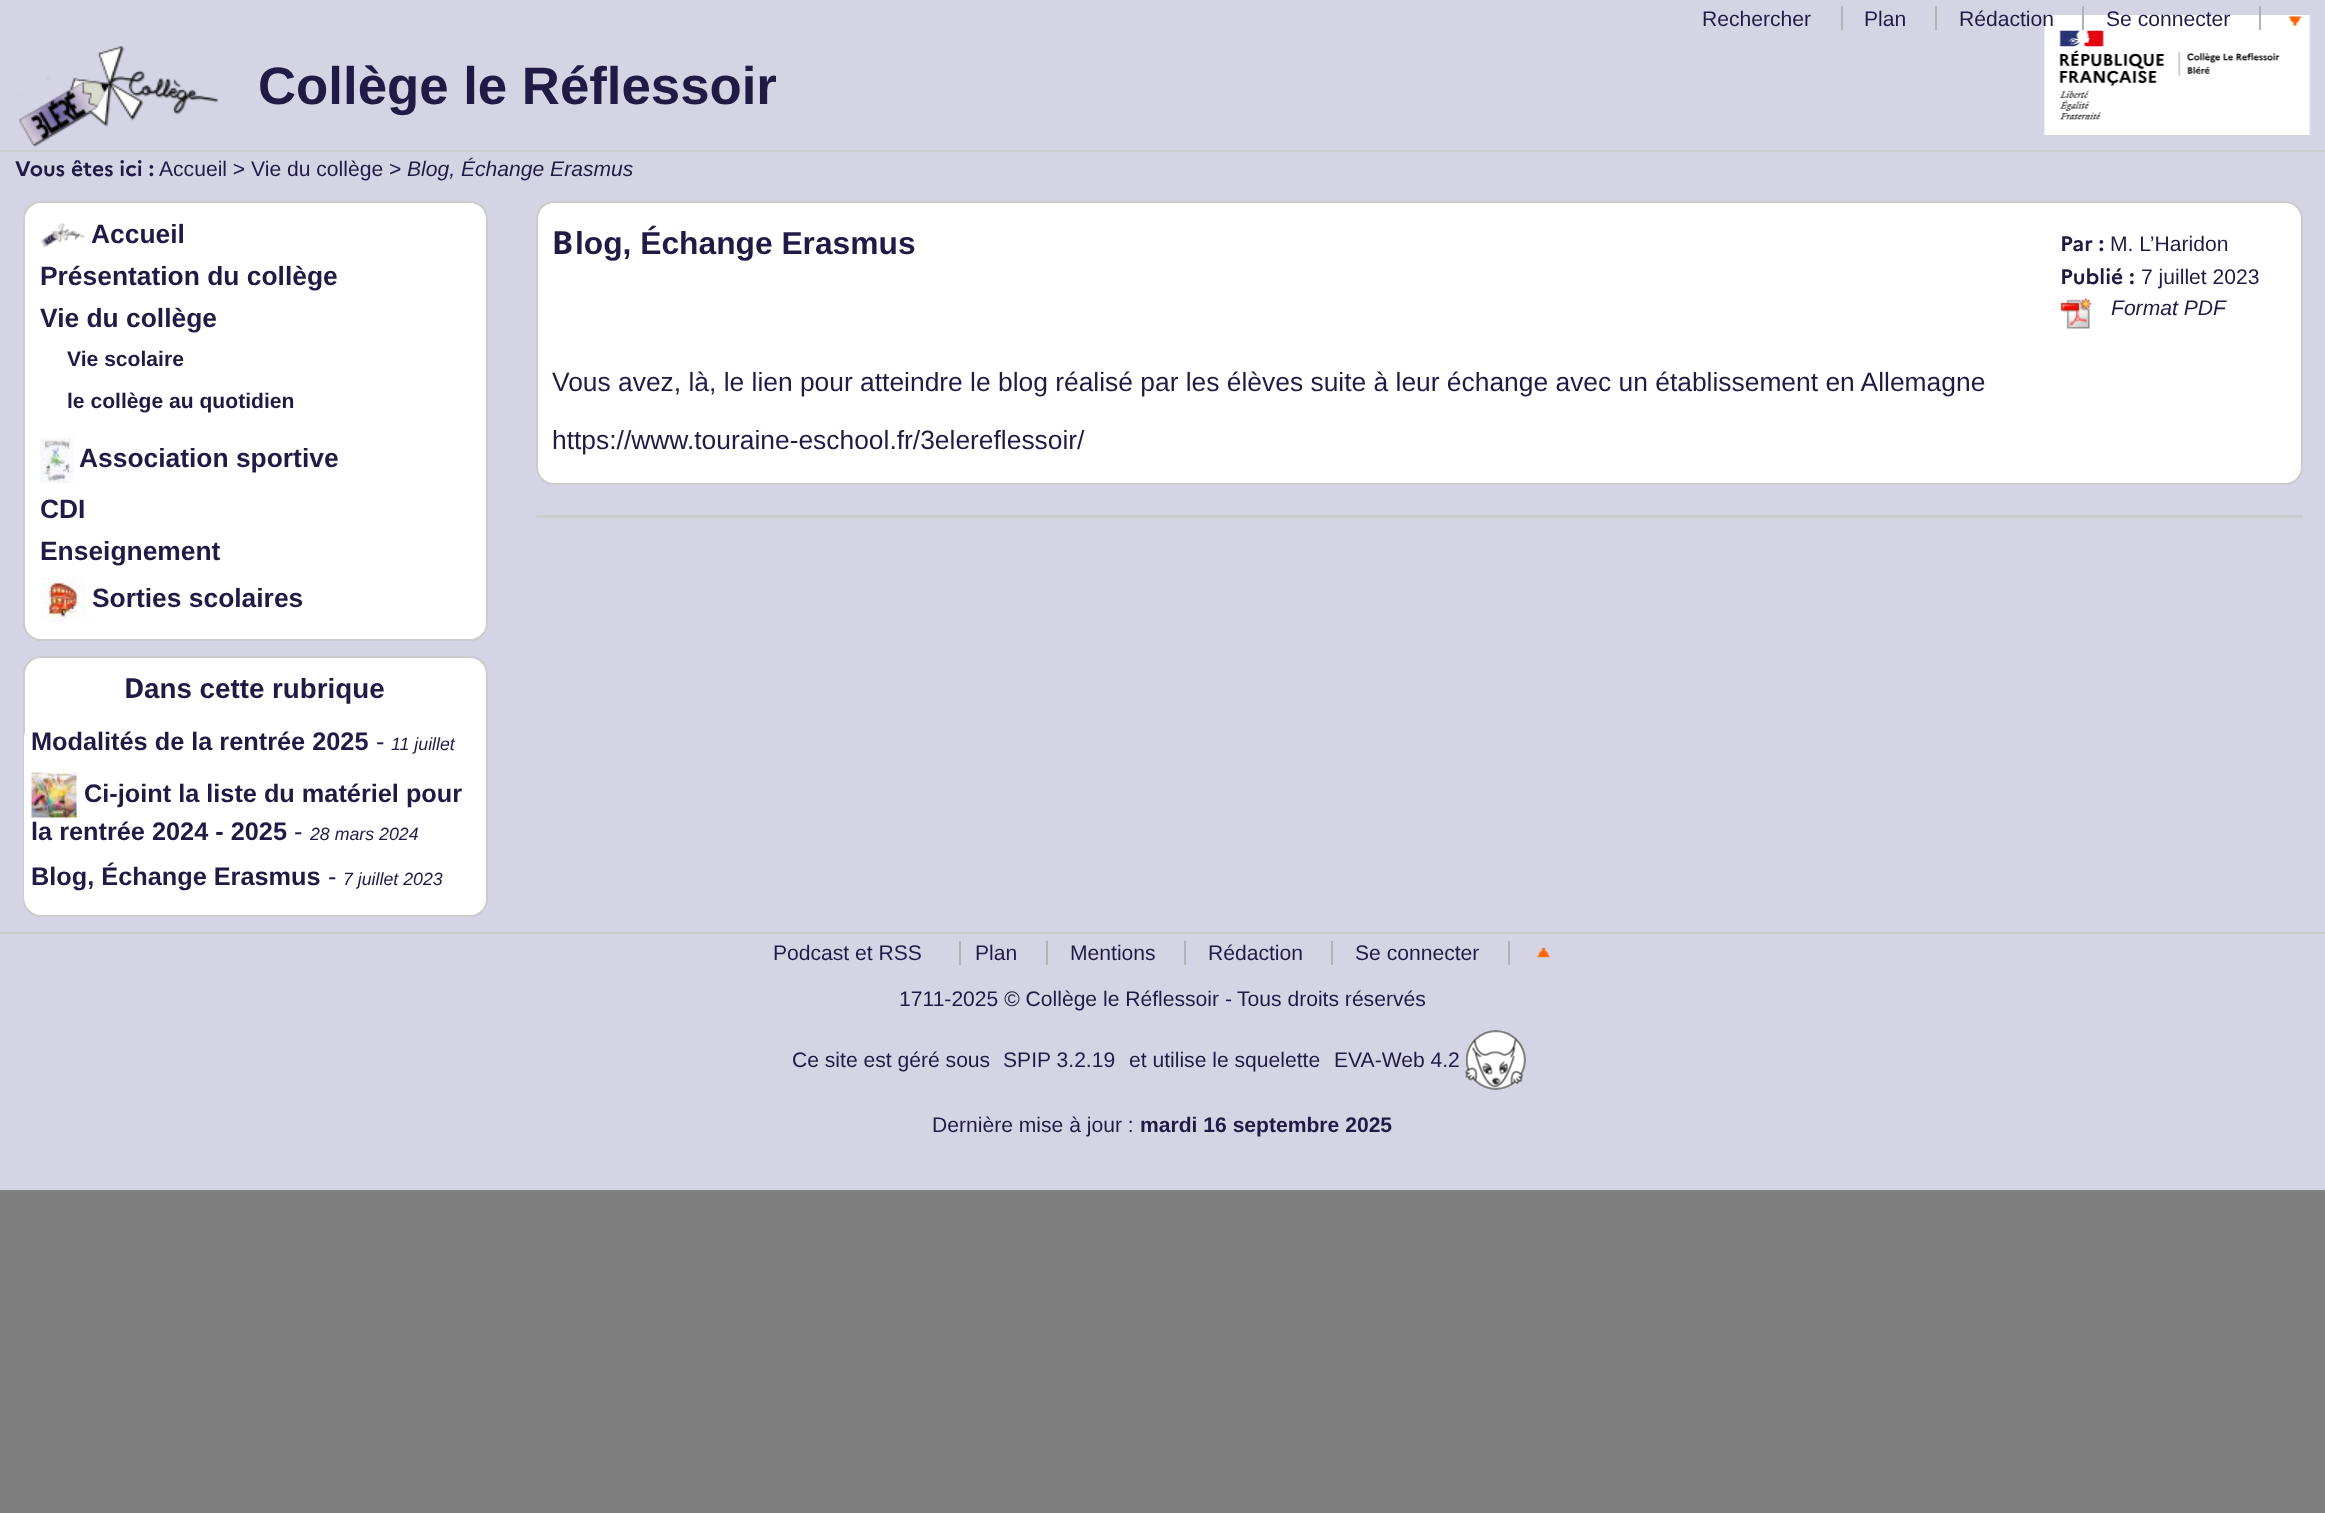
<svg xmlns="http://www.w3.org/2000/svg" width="2325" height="1513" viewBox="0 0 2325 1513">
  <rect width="100%" height="100%" fill="#7f7f7f"/>
  <path d="M0 0h2325v1190H0z" fill="#d5d4e5"/>
  <path d="M0 150h2325v2H0z" fill="#ccc"/>
  <path d="M1841 6h2v24H1841z" fill="#b3b3b3"/>
  <path d="M1935 6h2v24H1935z" fill="#b3b3b3"/>
  <image x="2044" y="15" width="267" height="120" href="img/3.png"/>
  <path d="M2082 6h2v24H2082z" fill="#b3b3b3"/>
  <path d="M2259 6h2v24H2259z" fill="#b3b3b3"/>
  <image x="2288" y="16" width="14" height="10" href="img/1.png"/>
  <image x="16" y="46" width="203" height="101" href="img/2.png"/>
  <rect x="24" y="202" width="463" height="438" rx="17" fill="#fff" stroke="#ccc" stroke-width="2"/>
  <image x="40" y="223" width="45" height="25" href="img/4.png"/>
  <image x="40" y="438" width="34" height="45" href="img/5.png"/>
  <image x="40" y="577" width="46" height="46" href="img/6.png"/>
  <rect x="24" y="657" width="463" height="259" rx="17" fill="#fff" stroke="#ccc" stroke-width="2"/>
  <rect x="24" y="720" width="462" height="195" rx="18" fill="#fff"/>
  <image x="31" y="772" width="46" height="46" href="img/7.png"/>
  <rect x="537" y="202" width="1765" height="282" rx="17" fill="#fff" stroke="#ccc" stroke-width="2"/>
  <image x="2060" y="298" width="32" height="31" href="img/8.png"/>
  <rect x="536" y="515" width="1767" height="3" rx="1.5" fill="#ccc"/>
  <path d="M0 932h2325v2H0z" fill="#ccc"/>
  <path d="M959 941h2v24H959z" fill="#b3b3b3"/>
  <path d="M1046 941h2v24H1046z" fill="#b3b3b3"/>
  <path d="M1184 941h2v24H1184z" fill="#b3b3b3"/>
  <path d="M1331 941h2v24H1331z" fill="#b3b3b3"/>
  <path d="M1508 941h2v24H1508z" fill="#b3b3b3"/>
  <image x="1537" y="947" width="13" height="11" href="img/9.png"/>
  <image x="1465" y="1030" width="61" height="60" href="img/10.png"/>
  <g font-family="Liberation Sans" font-size="21.1" fill="#211a44">
    <text x="1702" y="26">Rechercher</text>
    <text x="1864" y="26">Plan</text>
    <text x="1959" y="26">Rédaction</text>
    <text x="2106" y="26">Se connecter</text>
  </g>
  <text x="258" y="104" font-family="Liberation Sans" font-size="52.75" font-weight="bold" fill="#211a44">Collège le Réflessoir</text>
  <text x="15" y="176" font-family="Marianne" font-size="21.1" font-weight="bold" fill="#211a44">Vous êtes ici :</text>
  <text x="159" y="176" font-family="Liberation Sans" font-size="21.1" fill="#211a44">Accueil &gt; Vie du collège &gt;</text>
  <text x="407" y="176" font-family="Liberation Sans" font-size="21.1" font-style="italic" fill="#211a44">Blog, Échange Erasmus</text>
  <g font-family="Liberation Sans" font-size="26.4" font-weight="bold" fill="#211a44">
    <text x="91" y="243">Accueil</text>
    <text x="40" y="285">Présentation du collège</text>
    <text x="40" y="327">Vie du collège</text>
  </g>
  <g font-family="Liberation Sans" font-size="21.1" font-weight="bold" fill="#211a44">
    <text x="67" y="366">Vie scolaire</text>
    <text x="67" y="408">le collège au quotidien</text>
  </g>
  <g font-family="Liberation Sans" font-size="26.4" font-weight="bold" fill="#211a44">
    <text x="79" y="467">Association sportive</text>
    <text x="40" y="518">CDI</text>
    <text x="40" y="560">Enseignement</text>
    <text x="92" y="607">Sorties scolaires</text>
  </g>
  <text x="124" y="698" font-family="Noto Sans" font-size="27.75" font-weight="bold" fill="#211a44">D</text>
  <text x="144" y="698" font-family="Liberation Sans" font-size="27.75" font-weight="bold" fill="#211a44">ans cette rubrique</text>
  <text x="31" y="750" font-family="Liberation Sans" font-size="25.3" font-weight="bold" fill="#211a44">Modalités de la rentrée 2025</text>
  <text x="376" y="750" font-family="Liberation Sans" font-size="25.3" fill="#211a44">-</text>
  <text x="391" y="750" font-family="Liberation Sans" font-size="17.75" font-style="italic" fill="#211a44">11 juillet</text>
  <g font-family="Liberation Sans" font-size="25.3" font-weight="bold" fill="#211a44">
    <text x="84" y="802">Ci-joint la liste du matériel pour</text>
    <text x="31" y="840">la rentrée 2024 - 2025</text>
  </g>
  <text x="294" y="840" font-family="Liberation Sans" font-size="25.3" fill="#211a44">-</text>
  <text x="310" y="840" font-family="Liberation Sans" font-size="17.75" font-style="italic" fill="#211a44">28 mars 2024</text>
  <text x="31" y="885" font-family="Liberation Sans" font-size="25.3" font-weight="bold" fill="#211a44">Blog, Échange Erasmus</text>
  <text x="328" y="885" font-family="Liberation Sans" font-size="25.3" fill="#211a44">-</text>
  <text x="343" y="885" font-family="Liberation Sans" font-size="17.75" font-style="italic" fill="#211a44">7 juillet 2023</text>
  <text x="552" y="254" font-family="Noto Sans" font-size="31.75" font-weight="bold" fill="#211a44">B</text>
  <text x="575" y="254" font-family="Liberation Sans" font-size="31.75" font-weight="bold" fill="#211a44">log, Échange Erasmus</text>
  <text x="2060" y="251" font-family="Marianne" font-size="21.1" font-weight="bold" fill="#211a44">Par :</text>
  <text x="2110" y="251" font-family="Liberation Sans" font-size="21.1" fill="#211a44">M. L’Haridon</text>
  <text x="2060" y="284" font-family="Marianne" font-size="21.1" font-weight="bold" fill="#211a44">Publié :</text>
  <text x="2141" y="284" font-family="Liberation Sans" font-size="21.1" fill="#211a44">7 juillet 2023</text>
  <text x="2111" y="315" font-family="Liberation Sans" font-size="21.1" font-style="italic" fill="#211a44">Format PDF</text>
  <g font-family="Liberation Sans" font-size="26.4" fill="#211a44">
    <text x="552" y="391">Vous avez, là, le lien pour atteindre le blog réalisé par les élèves suite à leur échange avec un établissement en Allemagne</text>
    <text x="552" y="449">https://www.touraine-eschool.fr/3elereflessoir/</text>
  </g>
  <g font-family="Liberation Sans" font-size="21.1" fill="#211a44">
    <text x="773" y="960">Podcast et RSS</text>
    <text x="975" y="960">Plan</text>
    <text x="1070" y="960">Mentions</text>
    <text x="1208" y="960">Rédaction</text>
    <text x="1355" y="960">Se connecter</text>
    <text x="899" y="1006">1711-2025 © Collège le Réflessoir -</text>
    <text x="1237" y="1006">Tous droits réservés</text>
    <text x="792" y="1067">Ce site est géré sous</text>
    <text x="1003" y="1067">SPIP 3.2.19</text>
    <text x="1129" y="1067">et utilise le squelette</text>
    <text x="1334" y="1067">EVA-Web 4.2</text>
    <text x="932" y="1132">Dernière mise à jour :</text>
  </g>
  <text x="1140" y="1132" font-family="Liberation Sans" font-size="21.1" font-weight="bold" fill="#211a44">mardi 16 septembre 2025</text>
</svg>
